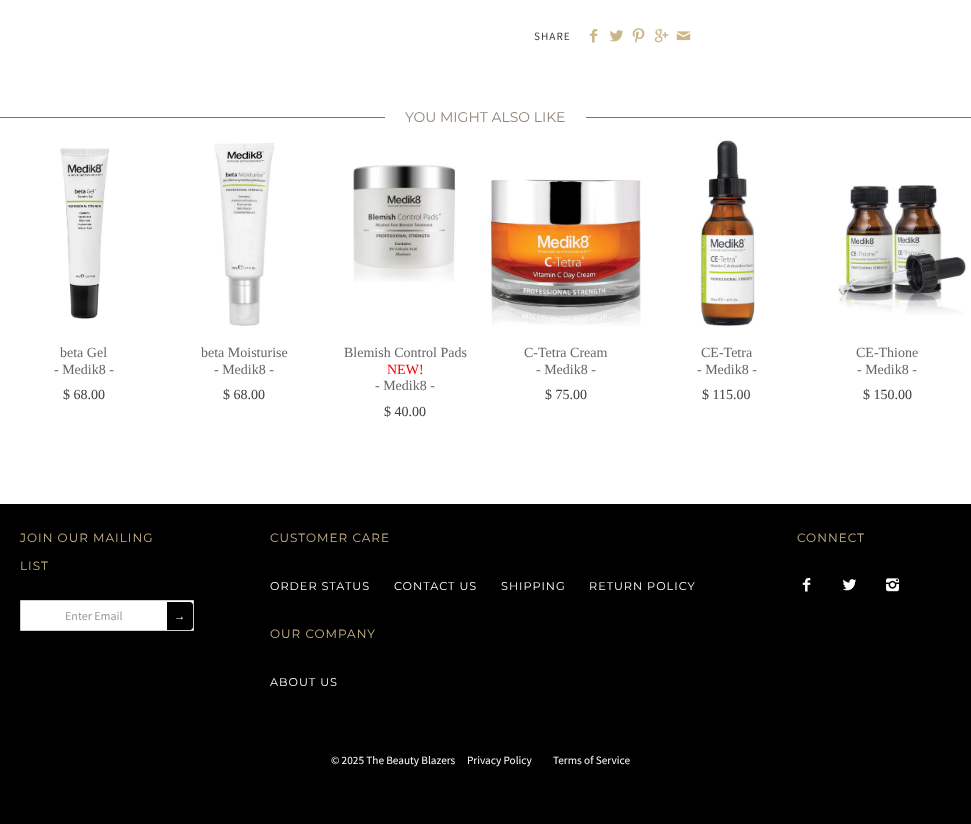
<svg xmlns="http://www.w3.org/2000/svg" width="971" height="824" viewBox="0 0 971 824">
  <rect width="100%" height="100%" fill="#fff"/>
  <image x="589" y="29" width="9" height="14" href="img/1.png"/>
  <image x="609" y="30" width="15" height="12" href="img/2.png"/>
  <image x="632" y="28" width="13" height="15" href="img/3.png"/>
  <image x="654" y="29" width="15" height="14" href="img/4.png"/>
  <image x="676" y="31" width="15" height="10" href="img/5.png"/>
  <path d="M0 117h971v1H0z" fill="#85705f"/>
  <path d="M385 117h201v1H385z" fill="#fff"/>
  <image x="60" y="148" width="49" height="171" href="img/6.png"/>
  <image x="214" y="143" width="61" height="183" href="img/7.png"/>
  <image x="353" y="164" width="103" height="118" href="img/8.png"/>
  <image x="487" y="179" width="154" height="147" href="img/9.png"/>
  <image x="700" y="140" width="55" height="186" href="img/10.png"/>
  <image x="838" y="185" width="128" height="130" href="img/11.png"/>
  <path d="M0 504h971v320H0z" fill="#000"/>
  <path d="M20.5 600.5h173v30H20.5z" fill="#fff" stroke="#cfcecd"/>
  <path d="M167 602H190C191.5 602 193 603.5 193 605V627C193 628.5 191.5 630 190 630H167Z" fill="#000"/>
  <image x="802" y="578" width="9" height="14" href="img/12.png"/>
  <image x="842" y="579" width="15" height="12" href="img/13.png"/>
  <image x="886" y="578" width="13" height="14" href="img/14.png"/>
  <text x="534" y="40" font-family="Source Sans Pro" font-size="11.25" letter-spacing="1" fill="#3f3d3a">SHARE</text>
  <text x="405" y="122" font-family="Montserrat" font-size="14" fill="#908578">YOU MIGHT ALSO LIKE</text>
  <g font-family="Liberation Serif" font-size="14" fill="#666">
    <text x="60" y="357">beta Gel</text>
    <text x="54" y="374">- Medik8 -</text>
  </g>
  <text x="63" y="399" font-family="Liberation Serif" font-size="14" fill="#3f3d3a">$ 68.00</text>
  <g font-family="Liberation Serif" font-size="14" fill="#666">
    <text x="201" y="357">beta Moisturise</text>
    <text x="214" y="374">- Medik8 -</text>
  </g>
  <text x="223" y="399" font-family="Liberation Serif" font-size="14" fill="#3f3d3a">$ 68.00</text>
  <text x="344" y="357" font-family="Liberation Serif" font-size="14" fill="#666">Blemish Control Pads</text>
  <text x="387" y="374" font-family="Liberation Serif" font-size="14" fill="#f00">NEW!</text>
  <text x="375" y="390" font-family="Liberation Serif" font-size="14" fill="#666">- Medik8 -</text>
  <text x="384" y="416" font-family="Liberation Serif" font-size="14" fill="#3f3d3a">$ 40.00</text>
  <g font-family="Liberation Serif" font-size="14" fill="#666">
    <text x="524" y="357">C-Tetra Cream</text>
    <text x="536" y="374">- Medik8 -</text>
  </g>
  <text x="545" y="399" font-family="Liberation Serif" font-size="14" fill="#3f3d3a">$ 75.00</text>
  <g font-family="Liberation Serif" font-size="14" fill="#666">
    <text x="701" y="357">CE-Tetra</text>
    <text x="697" y="374">- Medik8 -</text>
  </g>
  <text x="702" y="399" font-family="Liberation Serif" font-size="14" fill="#3f3d3a">$ 115.00</text>
  <g font-family="Liberation Serif" font-size="14" fill="#666">
    <text x="856" y="357">CE-Thione</text>
    <text x="857" y="374">- Medik8 -</text>
  </g>
  <text x="863" y="399" font-family="Liberation Serif" font-size="14" fill="#3f3d3a">$ 150.00</text>
  <g font-family="Montserrat" font-size="12" letter-spacing="1" fill="#cab68a">
    <text x="20" y="542">JOIN OUR MAILING</text>
    <text x="20" y="570">LIST</text>
  </g>
  <text x="65" y="620" font-family="Source Sans Pro" font-size="12" fill="#999">Enter Email</text>
  <text x="174" y="620" font-family="Liberation Serif" font-size="11.25" letter-spacing="1" fill="#fff">→</text>
  <text x="270" y="542" font-family="Montserrat" font-size="12" letter-spacing="1" fill="#cab68a">CUSTOMER CARE</text>
  <g font-family="Montserrat" font-size="11.25" letter-spacing="1" fill="#fff">
    <text x="270" y="590">ORDER STATUS</text>
    <text x="394" y="590">CONTACT US</text>
    <text x="501" y="590">SHIPPING</text>
    <text x="589" y="590">RETURN POLICY</text>
  </g>
  <text x="270" y="638" font-family="Montserrat" font-size="12" letter-spacing="1" fill="#cab68a">OUR COMPANY</text>
  <text x="270" y="686" font-family="Montserrat" font-size="11.25" letter-spacing="1" fill="#fff">ABOUT US</text>
  <text x="797" y="542" font-family="Montserrat" font-size="12" letter-spacing="1" fill="#cab68a">CONNECT</text>
  <g font-family="Source Sans Pro" font-size="11.25" fill="#fff">
    <text x="331" y="764">© 2025 The Beauty Blazers</text>
    <text x="467" y="764">Privacy Policy</text>
    <text x="553" y="764">Terms of Service</text>
  </g>
</svg>
